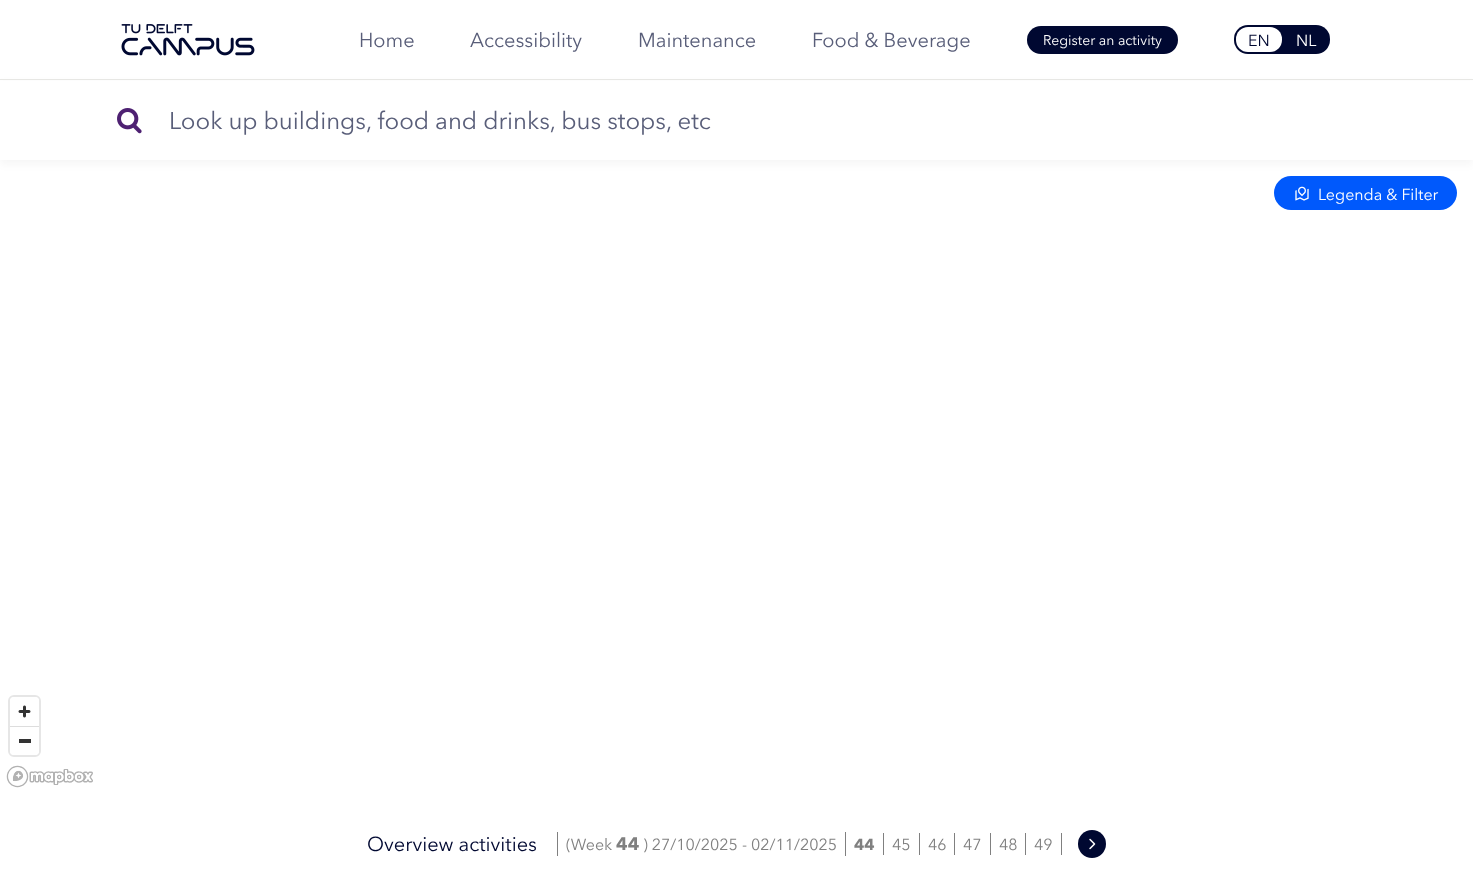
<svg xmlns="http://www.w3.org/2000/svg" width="1473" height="894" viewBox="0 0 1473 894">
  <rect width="100%" height="100%" fill="#fff"/>
  <path d="M0 79h1473v1H0z" fill="#e8e8e5"/>
  <image x="121" y="24" width="134" height="32" href="img/1.png"/>
  <rect x="1027" y="26" width="151" height="28" rx="14" fill="#000831"/>
  <rect x="1234" y="25" width="96" height="29" rx="14" fill="#000831"/>
  <rect x="1236" y="27" width="46" height="25" rx="12" fill="#fff"/>
  <rect x="1274" y="176" width="183" height="34" rx="17" fill="#0059fc"/>
  <path d="M0 84h1473v80H0z" fill="#0000000a" filter="blur(4px)"/>
  <path d="M0 81h1473v79H0z" fill="#fff"/>
  <image x="117" y="108" width="25" height="26" href="img/2.png"/>
  <image x="1295" y="186" width="14" height="15" href="img/3.png"/>
  <rect x="9" y="696" width="31" height="60" rx="5" fill="none" stroke="#e6e6e6" stroke-width="2"/>
  <rect x="10" y="697" width="29" height="58" rx="4" fill="#fff"/>
  <image x="18" y="705" width="13" height="13" href="img/4.png"/>
  <path d="M10 726h29v1H10z" fill="#ddd"/>
  <path d="M19 739h12v4H19z" fill="#333"/>
  <image x="6" y="765" width="87" height="23" href="img/5.png"/>
  <path d="M845 832h1v24H845z" fill="#808080"/>
  <path d="M557 832h1v24H557z" fill="#808080"/>
  <path d="M883 833h1v22H883z" fill="#808080"/>
  <path d="M919 833h1v22H919z" fill="#808080"/>
  <path d="M954 833h1v22H954z" fill="#808080"/>
  <path d="M990 833h1v22H990z" fill="#808080"/>
  <path d="M1025 833h1v22H1025z" fill="#808080"/>
  <path d="M1061 833h1v22H1061z" fill="#808080"/>
  <circle cx="1092" cy="844" r="14" fill="#000831"/>
  <image x="1089" y="838" width="7" height="12" href="img/6.png"/>
  <g font-family="Avenir Next" font-size="20" fill="#595e79">
    <text x="359" y="47">Home</text>
    <text x="470" y="47">Accessibility</text>
    <text x="638" y="47">Maintenance</text>
    <text x="812" y="47">Food &amp; Beverage</text>
  </g>
  <text x="1043" y="45" font-family="Avenir Next" font-size="14" fill="#fff">Register an activity</text>
  <text x="1248" y="46" font-family="Avenir Next" font-size="16" fill="#000831">EN</text>
  <text x="1296" y="46" font-family="Avenir Next" font-size="16" fill="#fff">NL</text>
  <text x="169" y="129" font-family="Avenir Next" font-size="24" fill="#595e79">Look up buildings, food and drinks, bus stops, etc</text>
  <text x="1318" y="200" font-family="Avenir Next" font-size="16" fill="#fff">Legenda &amp; Filter</text>
  <text x="367" y="851" font-family="Avenir Next" font-size="20" fill="#000831">Overview activities</text>
  <text x="566" y="850" font-family="Avenir Next" font-size="16" fill="#808080">(Week</text>
  <text x="616" y="850" font-family="Avenir Next" font-size="18" font-weight="bold" fill="#808080">44</text>
  <text x="643" y="850" font-family="Avenir Next" font-size="16" fill="#808080">) 27/10/2025 - 02/11/2025</text>
  <text x="854" y="850" font-family="Avenir Next" font-size="16" font-weight="bold" fill="#808080">44</text>
  <g font-family="Avenir Next" font-size="16" fill="#808080">
    <text x="892" y="850">45</text>
    <text x="928" y="850">46</text>
    <text x="963" y="850">47</text>
    <text x="999" y="850">48</text>
    <text x="1034" y="850">49</text>
  </g>
</svg>
